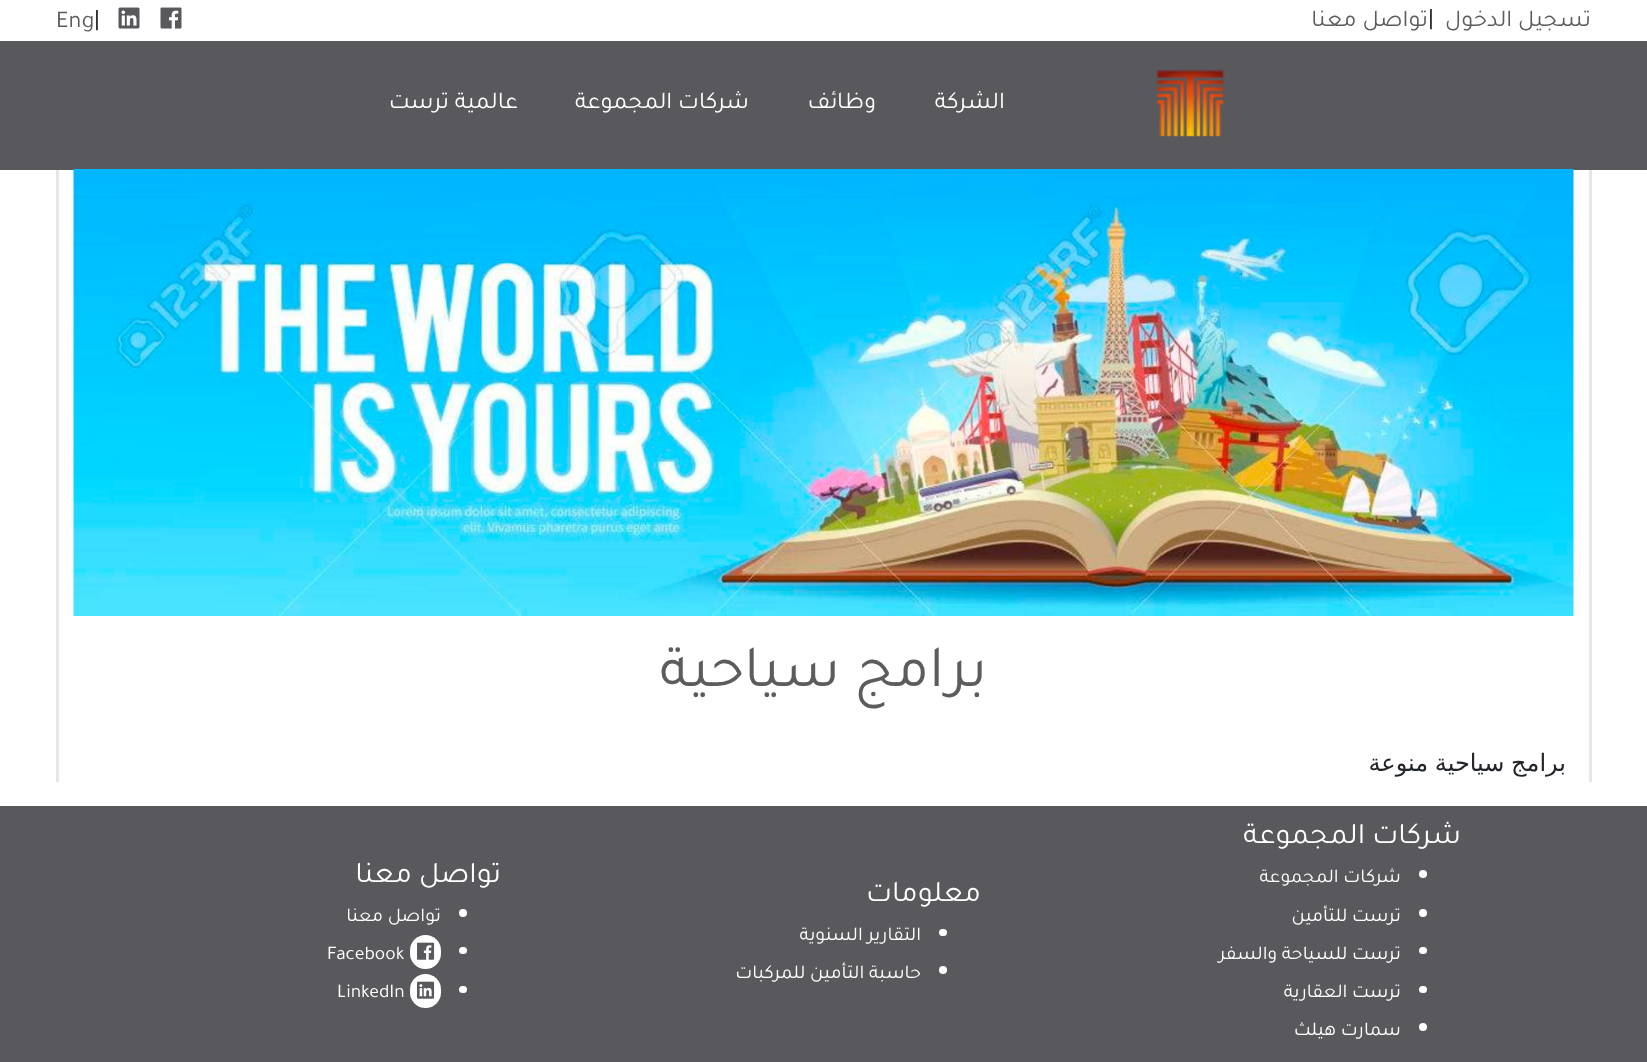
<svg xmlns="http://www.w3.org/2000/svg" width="1647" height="1062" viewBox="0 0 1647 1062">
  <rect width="100%" height="100%" fill="#fff"/>
  <image x="160" y="7" width="22" height="22" href="img/1.png"/>
  <image x="118" y="7" width="22" height="22" href="img/2.png"/>
  <path d="M0 41h1647v129H0z" fill="#59585d"/>
  <image x="1156" y="69" width="69" height="68" href="img/3.png"/>
  <path d="M1589 170h3v612H1589z" fill="#e7e7e7"/>
  <path d="M56 170h3v612H56z" fill="#e7e7e7"/>
  <image x="73" y="169" width="1501" height="447" href="img/4.png"/>
  <path d="M0 806h1647v256H0z" fill="#59585d"/>
  <circle cx="1423" cy="874" r="4" fill="#fff"/>
  <circle cx="1423" cy="913" r="4" fill="#fff"/>
  <rect x="1419" y="947" width="8" height="7" rx="3.5" fill="#fff"/>
  <rect x="1419" y="986" width="8" height="7" rx="3.5" fill="#fff"/>
  <circle cx="1423" cy="1027" r="4" fill="#fff"/>
  <rect x="939" y="929" width="8" height="7" rx="3.5" fill="#fff"/>
  <circle cx="943" cy="970" r="4" fill="#fff"/>
  <circle cx="463" cy="913" r="4" fill="#fff"/>
  <rect x="459" y="947" width="8" height="7" rx="3.5" fill="#fff"/>
  <rect x="410" y="935" width="31" height="34" rx="15.5" fill="#fff"/>
  <image x="417" y="942" width="18" height="18" href="img/5.png"/>
  <rect x="459" y="986" width="8" height="7" rx="3.5" fill="#fff"/>
  <rect x="410" y="974" width="31" height="34" rx="15.5" fill="#fff"/>
  <image x="417" y="981" width="18" height="18" href="img/6.png"/>
  <text x="1591" y="26" font-family="Tajawal" font-size="24" direction="rtl" fill="#5e5b5c">تسجيل الدخول</text>
  <text x="1428" y="26" font-family="Roboto" font-size="24" fill="#212529">|</text>
  <text x="1428" y="26" font-family="Tajawal" font-size="24" direction="rtl" fill="#5e5b5c">تواصل معنا</text>
  <text x="94" y="27" font-family="Roboto" font-size="24" fill="#212529">|</text>
  <text x="56" y="27" font-family="Tajawal" font-size="24" fill="#5e5b5c">Eng</text>
  <g font-family="Tajawal" font-size="24" direction="rtl" fill="#fff">
    <text x="1005" y="108">الشركة</text>
    <text x="876" y="108">وظائف</text>
    <text x="749" y="108">شركات المجموعة</text>
    <text x="518" y="108">عالمية ترست</text>
  </g>
  <text x="987" y="686" font-family="Tajawal" font-size="60" direction="rtl" fill="#5e5b5c">برامج سياحية</text>
  <text x="1566" y="771" word-spacing="-1" font-family="DejaVu Sans" font-size="24" direction="rtl" fill="#212529">برامج سياحية منوعة</text>
  <text x="1461" y="843" font-family="Tajawal" font-size="30" direction="rtl" fill="#fff">شركات المجموعة</text>
  <g font-family="Tajawal" font-size="19.5" direction="rtl" fill="#fff">
    <text x="1401" y="882">شركات المجموعة</text>
    <text x="1401" y="921">ترست للتأمين</text>
    <text x="1401" y="959">ترست للسياحة والسفر</text>
    <text x="1401" y="997">ترست العقارية</text>
    <text x="1401" y="1035">سمارت هيلث</text>
  </g>
  <text x="981" y="901" font-family="Tajawal" font-size="30" direction="rtl" fill="#fff">معلومات</text>
  <g font-family="Tajawal" font-size="19.5" direction="rtl" fill="#fff">
    <text x="921" y="940">التقارير السنوية</text>
    <text x="921" y="978">حاسبة التأمين للمركبات</text>
  </g>
  <text x="501" y="882" font-family="Tajawal" font-size="30" direction="rtl" fill="#fff">تواصل معنا</text>
  <text x="441" y="921" font-family="Tajawal" font-size="19.5" direction="rtl" fill="#fff">تواصل معنا</text>
  <g font-family="Tajawal" font-size="19.5" fill="#fff">
    <text x="327" y="959">Facebook</text>
    <text x="337" y="997">LinkedIn</text>
  </g>
</svg>
